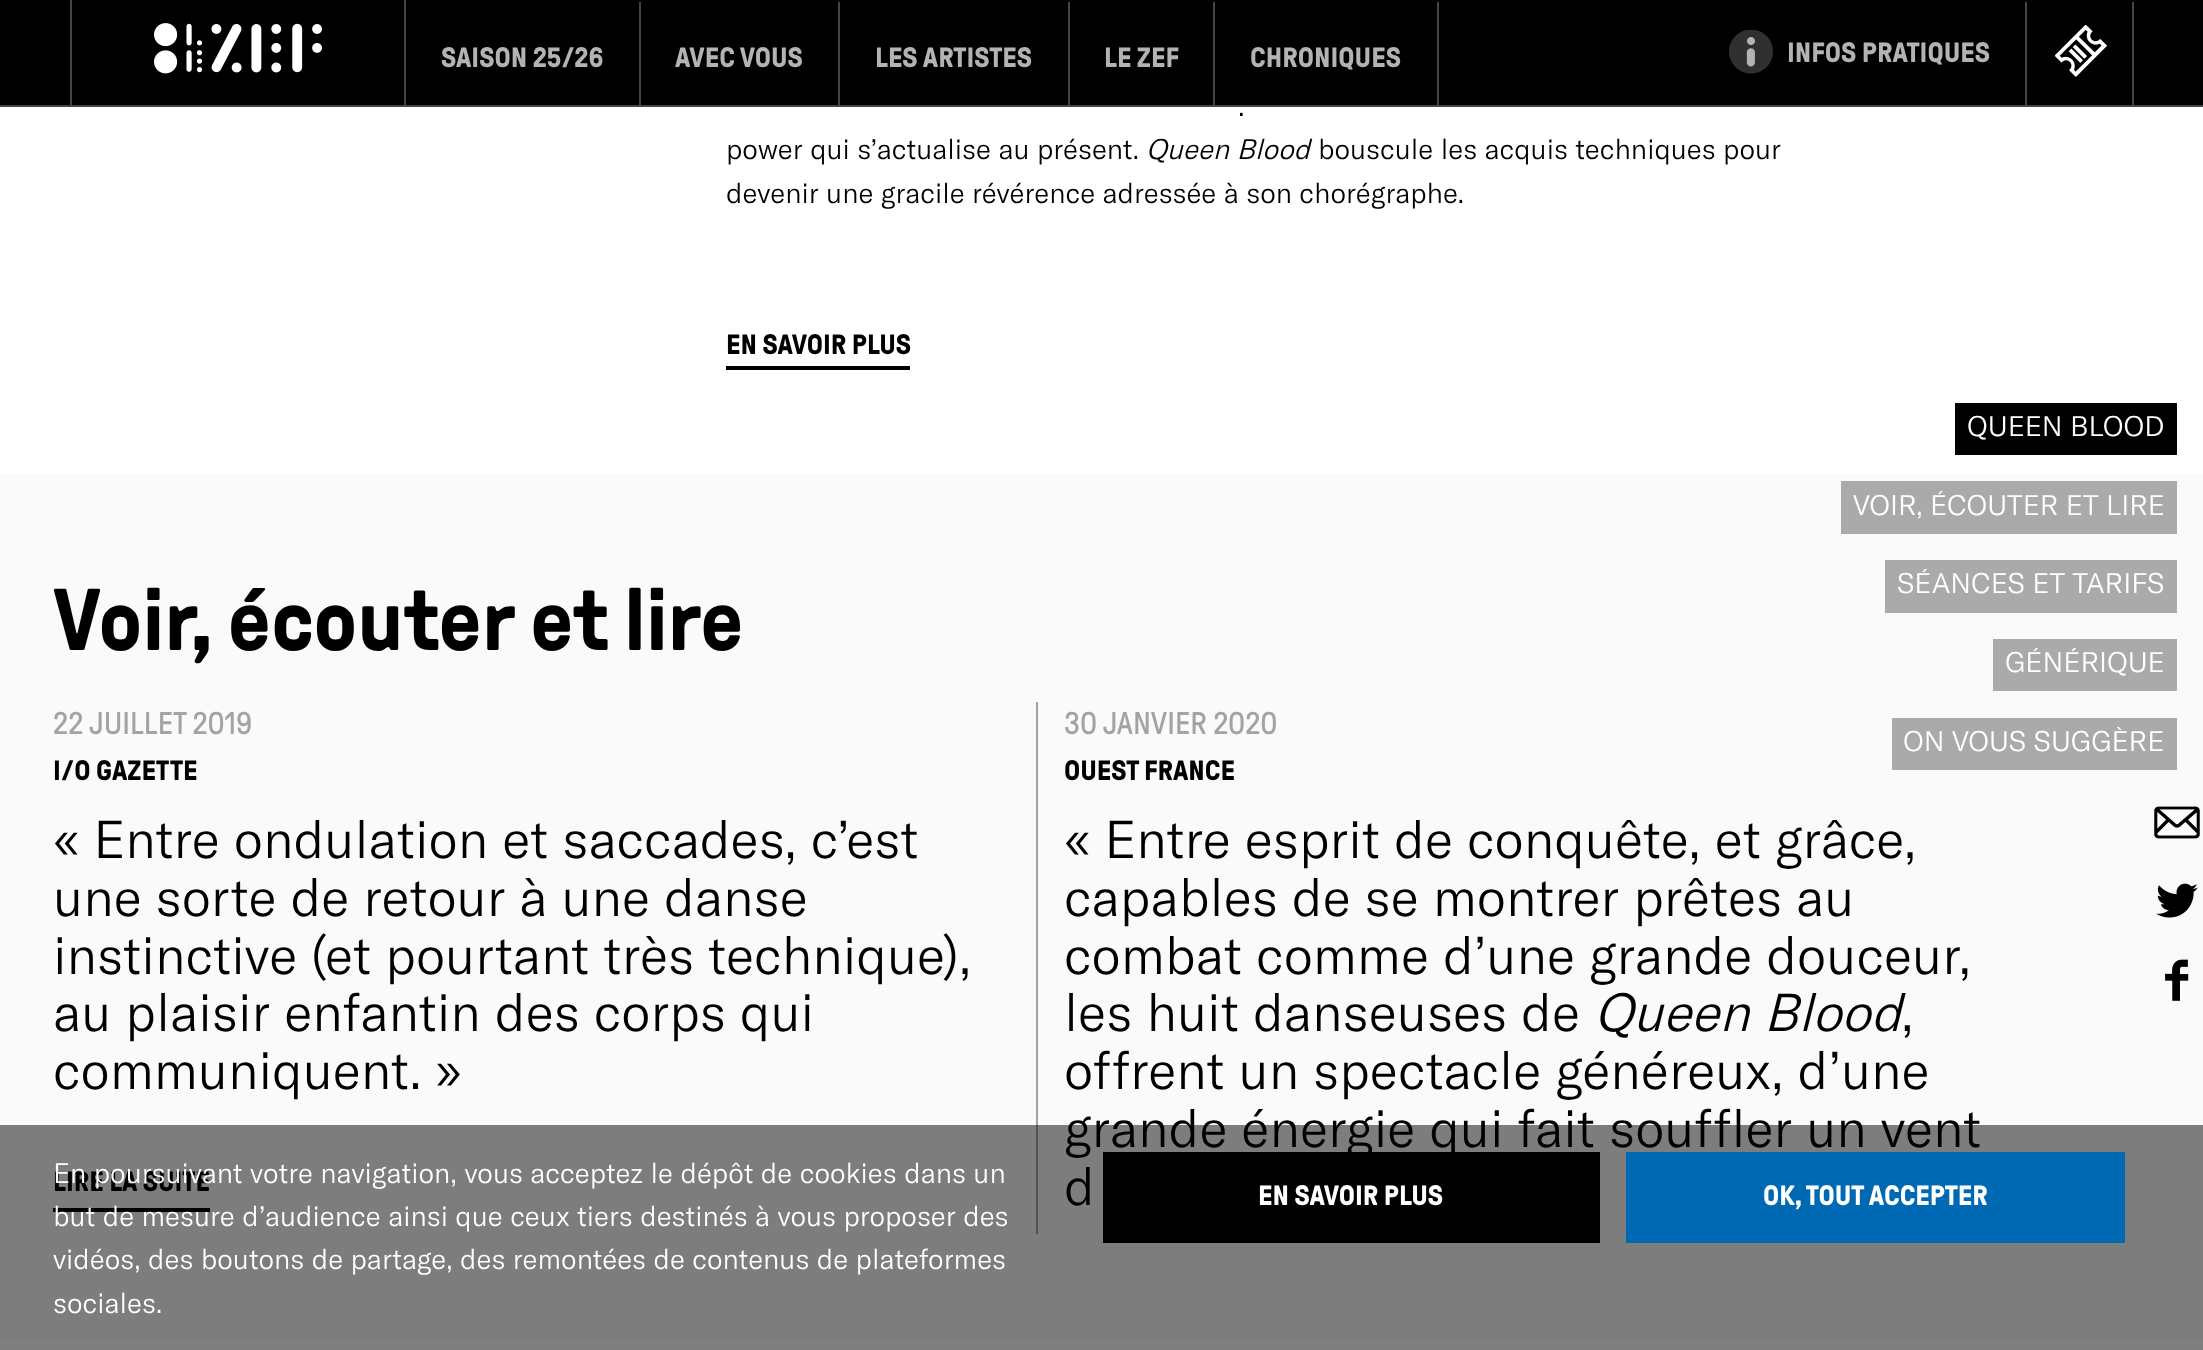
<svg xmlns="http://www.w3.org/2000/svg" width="2203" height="1350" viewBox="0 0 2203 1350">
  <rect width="100%" height="100%" fill="#fff"/>
  <path d="M0 2h2203v103H0z" fill="#000"/>
  <path d="M0 105h2203v2H0z" fill="#454545"/>
  <path d="M2132 0h2v105H2132z" fill="#454545"/>
  <path d="M2025 0h2v105H2025z" fill="#454545"/>
  <path d="M639 0h2v105H639z" fill="#454545"/>
  <path d="M838 0h2v105H838z" fill="#454545"/>
  <path d="M1068 0h2v105H1068z" fill="#454545"/>
  <path d="M1213 0h2v105H1213z" fill="#454545"/>
  <path d="M1437 0h2v105H1437z" fill="#454545"/>
  <path d="M0 0h2203v2H0z" fill="#000"/>
  <path d="M404 0h2v105H404z" fill="#454545"/>
  <path d="M70 0h2v105H70z" fill="#454545"/>
  <image x="154" y="23" width="168" height="51" href="img/1.png"/>
  <image x="1729" y="30" width="44" height="44" href="img/2.png"/>
  <image x="2055" y="25" width="52" height="52" href="img/3.png"/>
  <path d="M726 366h184v4H726z" fill="#000"/>
  <path d="M0 474h2203v865H0z" fill="#fafafa"/>
  <path d="M53 1208h157v4H53z" fill="#000"/>
  <path d="M1036 702h2v532H1036z" fill="#a3a3a3"/>
  <path d="M1955 403h222v52H1955z" fill="#000"/>
  <path d="M1841 481h336v53H1841z" fill="#aaa"/>
  <path d="M1885 560h292v53H1885z" fill="#aaa"/>
  <path d="M1993 639h184v52H1993z" fill="#aaa"/>
  <path d="M1892 718h285v52H1892z" fill="#aaa"/>
  <image x="2154" y="806" width="46" height="33" href="img/4.png"/>
  <image x="2156" y="883" width="42" height="35" href="img/5.png"/>
  <image x="2165" y="959" width="24" height="42" href="img/6.png"/>
  <g font-family="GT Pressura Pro" font-size="28" font-weight="bold" fill="#b3b3b3">
    <text x="441" y="67">SAISON 25/26</text>
    <text x="675" y="67">AVEC VOUS</text>
    <text x="875" y="67">LES ARTISTES</text>
    <text x="1104" y="67">LE ZEF</text>
    <text x="1250" y="67">CHRONIQUES</text>
    <text x="1787" y="62">INFOS PRATIQUES</text>
  </g>
  <g font-family="GT America" font-size="28" font-weight="300" fill="#000">
    <text x="1238" y="116">.</text>
    <text x="726" y="159">power qui s’actualise au présent.</text>
  </g>
  <text x="1146" y="159" font-family="GT America" font-size="28" font-weight="300" font-style="italic" fill="#000">Queen Blood</text>
  <g font-family="GT America" font-size="28" font-weight="300" fill="#000">
    <text x="1318" y="159">bouscule les acquis techniques pour</text>
    <text x="726" y="203">devenir une gracile révérence adressée à son chorégraphe.</text>
  </g>
  <text x="726" y="354" font-family="GT Pressura Pro" font-size="28" font-weight="bold" fill="#000">EN SAVOIR PLUS</text>
  <text x="53" y="650" font-family="GT Pressura Pro" font-size="87.5" font-weight="bold" fill="#000">Voir, écouter et lire</text>
  <text x="53" y="734" font-family="GT Pressura Pro" font-size="31.5" fill="#a3a3a3">22 JUILLET 2019</text>
  <text x="53" y="780" font-family="GT Pressura Pro" font-size="28" font-weight="bold" fill="#000">I/O GAZETTE</text>
  <g font-family="GT America" font-size="52.5" font-weight="300" fill="#000">
    <text x="53" y="858">« Entre ondulation et saccades, c’est</text>
    <text x="53" y="916">une sorte de retour à une danse</text>
    <text x="53" y="974">instinctive (et pourtant très technique),</text>
    <text x="53" y="1031">au plaisir enfantin des corps qui</text>
    <text x="53" y="1089">communiquent. »</text>
  </g>
  <text x="53" y="1191" font-family="GT Pressura Pro" font-size="28" font-weight="bold" fill="#000">LIRE LA SUITE</text>
  <text x="1064" y="734" font-family="GT Pressura Pro" font-size="31.5" fill="#a3a3a3">30 JANVIER 2020</text>
  <text x="1064" y="780" font-family="GT Pressura Pro" font-size="28" font-weight="bold" fill="#000">OUEST FRANCE</text>
  <g font-family="GT America" font-size="52.5" font-weight="300" fill="#000">
    <text x="1064" y="858">« Entre esprit de conquête, et grâce,</text>
    <text x="1064" y="916">capables de se montrer prêtes au</text>
    <text x="1064" y="974">combat comme d’une grande douceur,</text>
    <text x="1064" y="1031">les huit danseuses de</text>
  </g>
  <text x="1594" y="1031" font-family="GT America" font-size="52.5" font-weight="300" font-style="italic" fill="#000">Queen Blood</text>
  <g font-family="GT America" font-size="52.5" font-weight="300" fill="#000">
    <text x="1901" y="1031">,</text>
    <text x="1064" y="1089">offrent un spectacle généreux, d’une</text>
    <text x="1064" y="1147">grande énergie qui fait souffler un vent</text>
    <text x="1064" y="1205">d</text>
  </g>
  <g font-family="GT America" font-size="28" font-weight="300" fill="#fff">
    <text x="1967" y="436">QUEEN BLOOD</text>
    <text x="1853" y="515">VOIR, ÉCOUTER ET LIRE</text>
    <text x="1897" y="593">SÉANCES ET TARIFS</text>
    <text x="2005" y="672">GÉNÉRIQUE</text>
    <text x="1903" y="751">ON VOUS SUGGÈRE</text>
  </g>
  <path d="M0 1125h2203v225H0z" fill="#00000080"/>
  <g font-family="GT America" font-size="28" font-weight="300" fill="#fff">
    <text x="53" y="1183">En poursuivant votre navigation, vous acceptez le dépôt de cookies dans un</text>
    <text x="53" y="1226">but de mesure d’audience ainsi que ceux tiers destinés à vous proposer des</text>
    <text x="53" y="1269">vidéos, des boutons de partage, des remontées de contenus de plateformes</text>
    <text x="53" y="1313">sociales.</text>
  </g>
  <path d="M1103 1152h497v91H1103z" fill="#000"/>
  <text x="1258" y="1205" font-family="GT Pressura Pro" font-size="28" font-weight="bold" fill="#fff">EN SAVOIR PLUS</text>
  <path d="M1626 1152h499v91H1626z" fill="#0069b4"/>
  <text x="1763" y="1205" font-family="GT Pressura Pro" font-size="28" font-weight="bold" fill="#fff">OK, TOUT ACCEPTER</text>
</svg>
